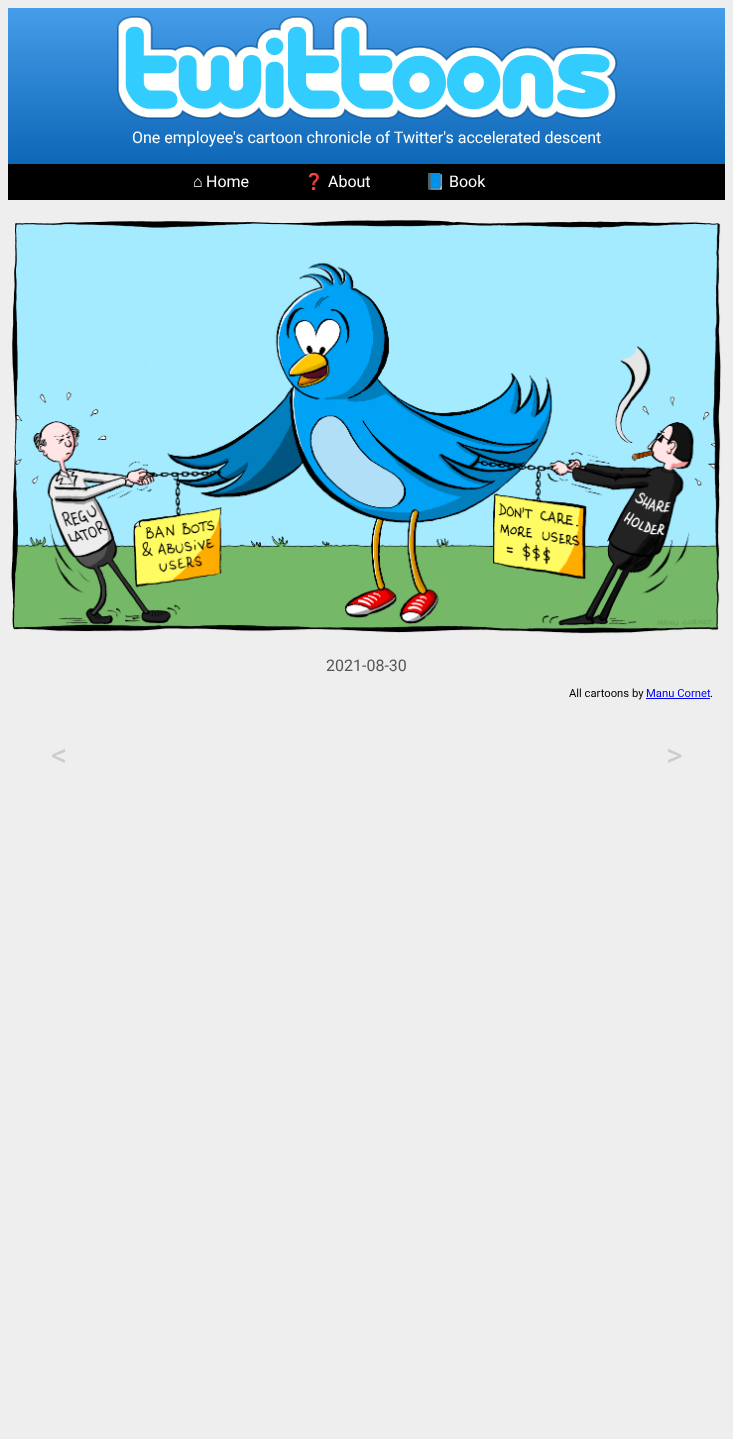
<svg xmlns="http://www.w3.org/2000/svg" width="733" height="1439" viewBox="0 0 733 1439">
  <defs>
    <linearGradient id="g1" gradientUnits="userSpaceOnUse" x1="367" y1="8" x2="367" y2="200"><stop offset="0" stop-color="#469de9"/><stop offset="1" stop-color="#005bab"/></linearGradient>
  </defs>
  <rect width="100%" height="100%" fill="#eee"/>
  <path d="M8 8h717v156H8z" fill="url(#g1)"/>
  <image x="117" y="16" width="500" height="103" href="img/1.png"/>
  <path d="M8 164h717v36H8z" fill="#000"/>
  <image x="11" y="220" width="710" height="414" href="img/2.png"/>
  <path d="M646 698h64v1H646z" fill="#00e"/>
  <text x="132" y="143" font-family="Roboto" font-size="16" fill="#fff">One employee's cartoon chronicle of Twitter's accelerated descent</text>
  <text x="193" y="187" font-family="Liberation Sans" font-size="16" fill="#fff">⌂</text>
  <text x="206" y="187" font-family="Roboto" font-size="16" fill="#fff">Home</text>
  <text x="304" y="187" font-family="Noto Color Emoji" font-size="16" fill="#fff">❓</text>
  <text x="328" y="187" font-family="Roboto" font-size="16" fill="#fff">About</text>
  <text x="425" y="187" font-family="Noto Color Emoji" font-size="16" fill="#fff">📘</text>
  <text x="449" y="187" font-family="Roboto" font-size="16" fill="#fff">Book</text>
  <text x="326" y="671" font-family="Roboto" font-size="16" fill="#555">2021-08-30</text>
  <text x="569" y="697" font-family="Roboto" font-size="11.25" fill="#000">All cartoons by</text>
  <text x="646" y="697" font-family="Roboto" font-size="11.25" fill="#00e">Manu Cornet</text>
  <text x="710" y="697" font-family="Roboto" font-size="11.25" fill="#000">.</text>
  <g font-family="Roboto" font-size="32" fill="#ccc">
    <text x="51" y="766">&lt;</text>
    <text x="666" y="766">&gt;</text>
  </g>
</svg>
